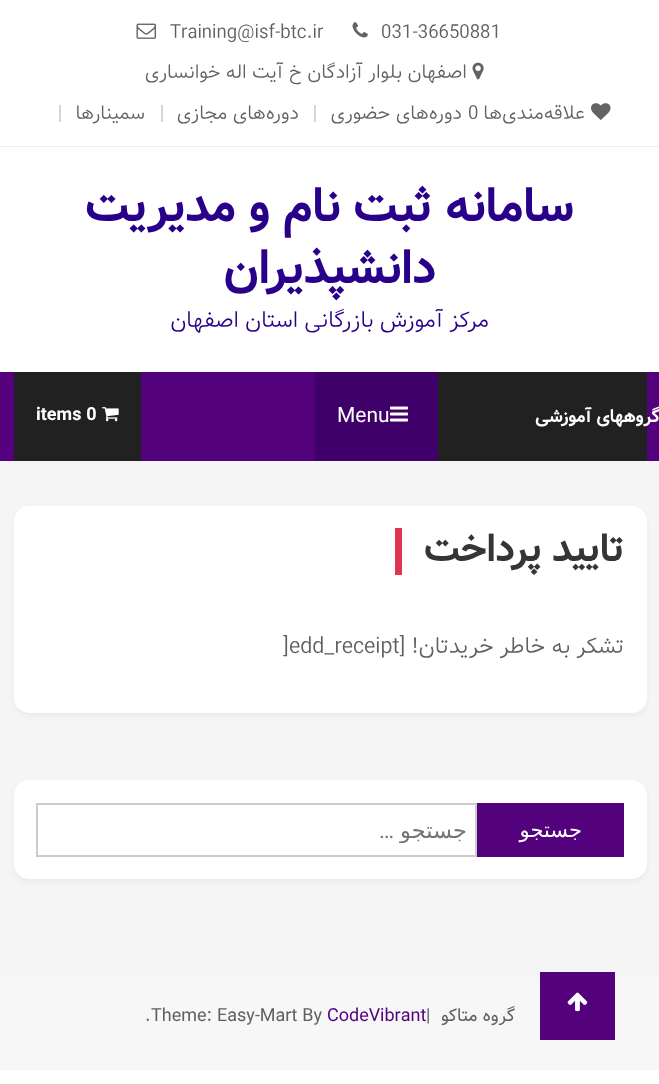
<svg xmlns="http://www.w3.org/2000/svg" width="659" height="1084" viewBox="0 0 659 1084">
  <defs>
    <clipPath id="clip1"><path d="M68 816h399v27H68z"/></clipPath>
  </defs>
  <rect width="100%" height="100%" fill="#fff"/>
  <path d="M0 461h659v516H0z" fill="#f5f5f5"/>
  <path d="M0 146h659v1H0z" fill="#ededed"/>
  <image x="352" y="22" width="16" height="16" href="img/1.png"/>
  <image x="136" y="23" width="20" height="16" href="img/2.png"/>
  <image x="472" y="62" width="12" height="18" href="img/3.png"/>
  <image x="591" y="103" width="20" height="17" href="img/4.png"/>
  <path d="M314 105h2v17H314z" fill="#d6d6d6"/>
  <path d="M161 105h2v17H161z" fill="#d6d6d6"/>
  <path d="M59 105h2v17H59z" fill="#d6d6d6"/>
  <path d="M0 372h659v89H0z" fill="#54017e"/>
  <path d="M438 372h209v89H438z" fill="#212121"/>
  <path d="M315 372h123v89H315z" fill="#40006a"/>
  <image x="390" y="406" width="18" height="16" href="img/5.png"/>
  <path d="M14 372h127v89H14z" fill="#212121"/>
  <image x="102" y="407" width="17" height="15" href="img/6.png"/>
  <rect x="14" y="509" width="633" height="207" rx="15" fill="#eaeaea" filter="blur(2px)"/>
  <rect x="14" y="506" width="633" height="207" rx="15" fill="#fff"/>
  <path d="M395 528h7v47H395z" fill="#df3550"/>
  <rect x="14" y="783" width="633" height="99" rx="15" fill="#eaeaea" filter="blur(2px)"/>
  <rect x="14" y="780" width="633" height="99" rx="15" fill="#fff"/>
  <path d="M477 803h147v54H477z" fill="#54017e"/>
  <path d="M37 804h439v52H37z" fill="none" stroke="#ccc" stroke-width="2"/>
  <path d="M0 977h659v93H0z" fill="#f7f7f7"/>
  <path d="M540 972h75v68H540z" fill="#54017e"/>
  <image x="567" y="992" width="21" height="20" href="img/7.png"/>
  <g font-family="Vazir" font-size="19.5" font-weight="300" fill="#606060">
    <text x="381" y="38">031-36650881</text>
    <text x="170" y="38">Training@isf-btc.ir</text>
  </g>
  <g font-family="Vazir" font-size="19.5" font-weight="300" direction="rtl" fill="#606060">
    <text x="467" y="78">اصفهان بلوار آزادگان خ آیت اله خوانساری</text>
    <text x="585" y="119">علاقه‌مندی‌ها</text>
  </g>
  <text x="468" y="119" font-family="Vazir" font-size="19.5" font-weight="300" fill="#606060">0</text>
  <g font-family="Vazir" font-size="19.5" font-weight="300" direction="rtl" fill="#606060">
    <text x="462" y="119">دوره‌های حضوری</text>
    <text x="299" y="119">دوره‌های مجازی</text>
    <text x="145" y="119">سمینارها</text>
  </g>
  <g font-family="Vazir" font-size="48" font-weight="bold" direction="rtl" fill="#290089">
    <text x="574" y="221">سامانه ثبت نام و مدیریت</text>
    <text x="436" y="283">دانشپذیران</text>
  </g>
  <text x="489" y="327" font-family="Vazir" font-size="22.5" font-weight="300" direction="rtl" fill="#290089">مرکز آموزش بازرگانی استان اصفهان</text>
  <text x="660" y="422" font-family="Vazir" font-size="18" font-weight="bold" direction="rtl" fill="#fff">گروههای آموزشی</text>
  <text x="337" y="422" font-family="Vazir" font-size="21" fill="#fff">Menu</text>
  <text x="36" y="420" font-family="Vazir" font-size="18" font-weight="bold" fill="#fff">items 0</text>
  <text x="624" y="561" font-family="Vazir" font-size="39" font-weight="bold" direction="rtl" fill="#353535">تایید پرداخت</text>
  <text x="624" y="653" font-family="Vazir" font-size="22.5" font-weight="300" direction="rtl" fill="#606060">تشکر به خاطر خریدتان! [</text>
  <text x="283" y="653" font-family="Vazir" font-size="22.5" font-weight="300" fill="#606060">]edd_receipt</text>
  <text x="582" y="837" font-family="DejaVu Sans" font-size="21" direction="rtl" fill="#fff">جستجو</text>
  <g clip-path="url(#clip1)">
    <text x="467" y="838" font-family="DejaVu Sans" font-size="22.5" direction="rtl" fill="#757575">جستجو</text>
  </g>
  <text x="394" y="838" font-family="Roboto" font-size="22.5" direction="rtl" fill="#757575">…</text>
  <text x="515" y="1021" font-family="Vazir" font-size="18" direction="rtl" fill="#606060">گروه متاکو</text>
  <text x="426" y="1021" font-family="Vazir" font-size="18" fill="#606060">|</text>
  <text x="327" y="1021" font-family="Vazir" font-size="18" fill="#54017e">CodeVibrant</text>
  <g font-family="Vazir" font-size="18" fill="#606060">
    <text x="151" y="1021">Theme: Easy-Mart By</text>
    <text x="145" y="1021">.</text>
  </g>
</svg>
